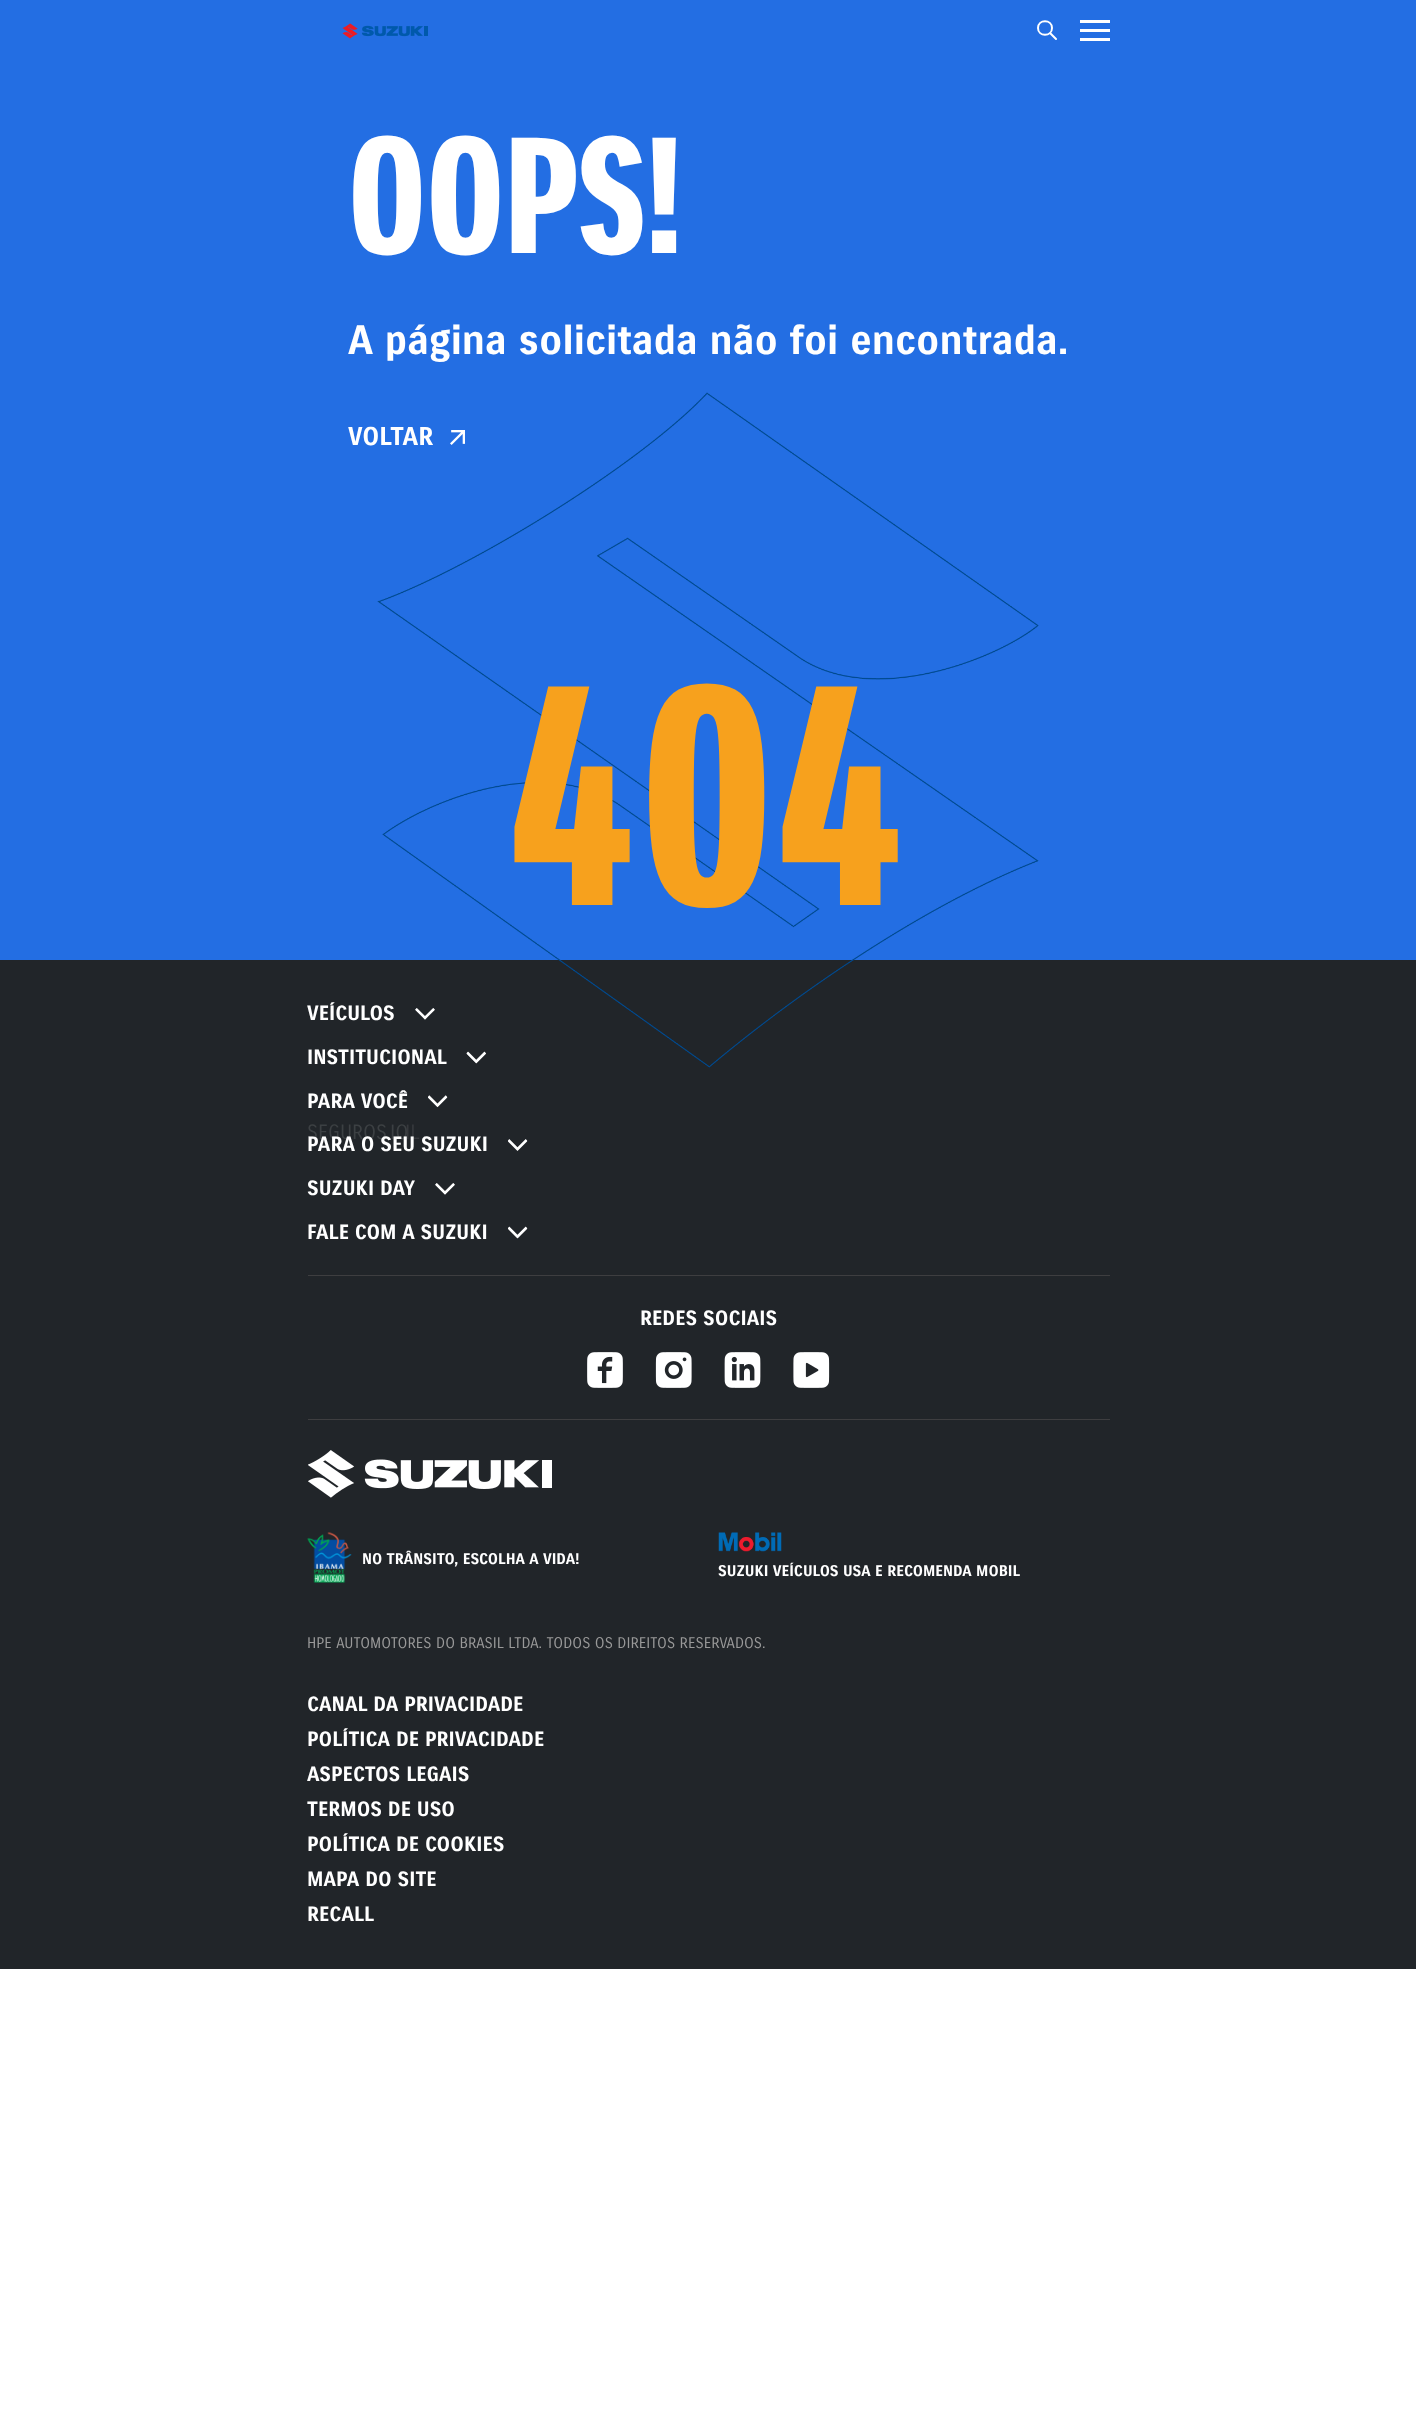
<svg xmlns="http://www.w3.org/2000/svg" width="1416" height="2429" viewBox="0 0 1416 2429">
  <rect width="100%" height="100%" fill="#fff"/>
  <path d="M0 0h1416v960H0z" fill="#236ee3"/>
  <image x="342" y="23" width="86" height="16" href="img/1.png"/>
  <path d="M1056 39L1050 33M1038 28C1038 37 1052 37 1052 28C1052 19 1038 19 1038 28Z" fill="none" stroke="#fff" stroke-width="2" stroke-linecap="round" stroke-linejoin="round"/>
  <path d="M1080 20h30v3H1080z" fill="#fff"/>
  <path d="M1080 29h30v3H1080z" fill="#fff"/>
  <path d="M1080 38h30v3H1080z" fill="#fff"/>
  <image x="450" y="430" width="15" height="15" href="img/2.png"/>
  <path d="M0 960h1416v1009H0z" fill="#212529"/>
  <image x="415" y="1008" width="20" height="12" href="img/4.png"/>
  <image x="466" y="1051" width="20" height="13" href="img/5.png"/>
  <image x="428" y="1095" width="20" height="13" href="img/6.png"/>
  <image x="508" y="1139" width="20" height="12" href="img/7.png"/>
  <image x="435" y="1183" width="20" height="12" href="img/8.png"/>
  <image x="508" y="1226" width="20" height="13" href="img/9.png"/>
  <path d="M308 1275h802v1H308z" fill="#3e3e40"/>
  <path d="M308 1419h802v1H308z" fill="#3e3e40"/>
  <image x="587" y="1352" width="36" height="36" href="img/10.png"/>
  <image x="655" y="1352" width="37" height="36" href="img/11.png"/>
  <image x="724" y="1352" width="37" height="36" href="img/12.png"/>
  <image x="793" y="1352" width="37" height="36" href="img/13.png"/>
  <image x="308" y="1450" width="244" height="48" href="img/14.png"/>
  <image x="307" y="1532" width="45" height="51" href="img/15.png"/>
  <image x="718" y="1532" width="64" height="20" href="img/16.png"/>
  <text x="348" y="253" font-family="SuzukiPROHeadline" font-size="160" font-weight="bold" fill="#fff">OOPS!</text>
  <text x="348" y="354" font-family="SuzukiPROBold" font-size="40" font-weight="bold" fill="#fff">A página solicitada não foi encontrada.</text>
  <text x="348" y="445" font-family="SuzukiPROBold" font-size="25" font-weight="bold" fill="#fff">VOLTAR</text>
  <g font-family="SuzukiPROBold" font-size="20" font-weight="bold" fill="#fff">
    <text x="307" y="1020">VEÍCULOS</text>
    <text x="307" y="1064">INSTITUCIONAL</text>
  </g>
  <image x="377" y="392" width="662" height="676" href="img/3.png"/>
  <text x="507" y="905" font-family="SuzukiPROHeadline" font-size="312" font-weight="bold" letter-spacing="3" fill="#f7a11d">404</text>
  <text x="307" y="1108" font-family="SuzukiPROBold" font-size="20" font-weight="bold" fill="#fff">PARA VOCÊ</text>
  <g font-family="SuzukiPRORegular" font-size="20" fill="#3c4043">
    <text x="307" y="1139">SEGUROS</text>
    <text x="390" y="1139">IO</text>
  </g>
  <text x="405" y="1139" font-family="SuzukiPRORegular" font-size="20" fill="#36393d">IL</text>
  <g font-family="SuzukiPROBold" font-size="20" font-weight="bold" fill="#fff">
    <text x="307" y="1151">PARA O SEU SUZUKI</text>
    <text x="307" y="1195">SUZUKI DAY</text>
    <text x="307" y="1239">FALE COM A SUZUKI</text>
    <text x="640" y="1325">REDES SOCIAIS</text>
  </g>
  <g font-family="SuzukiPROBold" font-size="15" font-weight="bold" fill="#fff">
    <text x="362" y="1564">NO TRÂNSITO, ESCOLHA A VIDA!</text>
    <text x="718" y="1576">SUZUKI VEÍCULOS USA E RECOMENDA MOBIL</text>
  </g>
  <text x="307" y="1648" font-family="SuzukiPRORegular" font-size="15" fill="#999">HPE AUTOMOTORES DO BRASIL LTDA. TODOS OS DIREITOS RESERVADOS.</text>
  <g font-family="SuzukiPROBold" font-size="20" font-weight="bold" fill="#fff">
    <text x="307" y="1711">CANAL DA PRIVACIDADE</text>
    <text x="307" y="1746">POLÍTICA DE PRIVACIDADE</text>
    <text x="307" y="1781">ASPECTOS LEGAIS</text>
    <text x="307" y="1816">TERMOS DE USO</text>
    <text x="307" y="1851">POLÍTICA DE COOKIES</text>
    <text x="307" y="1886">MAPA DO SITE</text>
    <text x="307" y="1921">RECALL</text>
  </g>
</svg>
